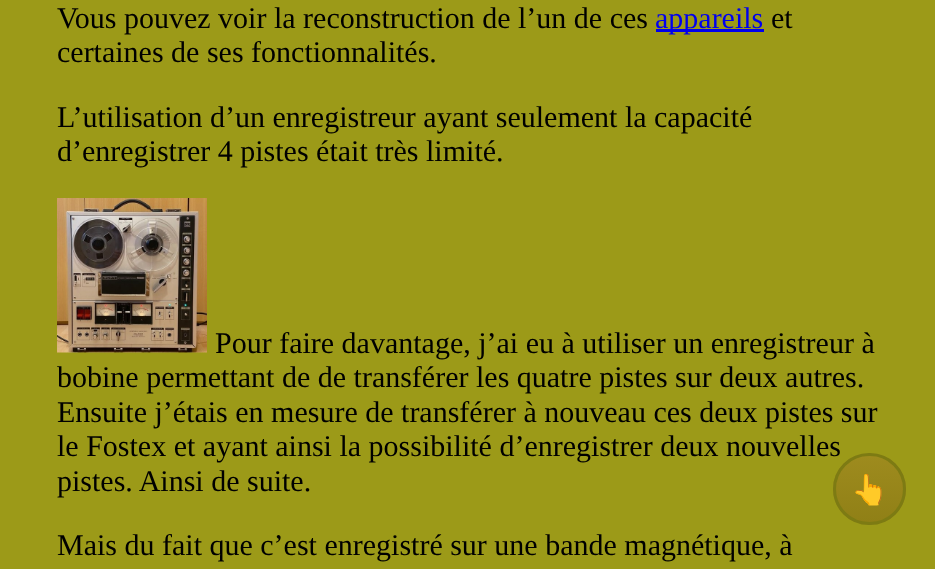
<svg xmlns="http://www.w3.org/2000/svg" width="935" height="569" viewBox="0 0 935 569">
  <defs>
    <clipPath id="clip1"><rect x="833" y="453" width="73" height="72" rx="36"/></clipPath>
    <linearGradient id="g1" gradientUnits="userSpaceOnUse" x1="869" y1="456" x2="869" y2="522"><stop offset="0" stop-color="#9e8b1e"/><stop offset="1" stop-color="#908016"/></linearGradient>
  </defs>
  <rect width="100%" height="100%" fill="#9c9a18"/>
  <path d="M656 29h108v3H656z" fill="#00e"/>
  <image x="57" y="198" width="150" height="155" href="img/1.png"/>
  <text x="57" y="28" font-family="Liberation Serif" font-size="30" fill="#000">Vous pouvez voir la reconstruction de l’un de ces</text>
  <text x="655" y="28" font-family="Liberation Serif" font-size="30" fill="#00e">appareils</text>
  <g font-family="Liberation Serif" font-size="30" fill="#000">
    <text x="771" y="28">et</text>
    <text x="57" y="62">certaines de ses fonctionnalités.</text>
    <text x="57" y="127">L’utilisation d’un enregistreur ayant seulement la capacité</text>
    <text x="57" y="161">d’enregistrer 4 pistes était très limité.</text>
    <text x="215" y="353">Pour faire davantage, j’ai eu à utiliser un enregistreur à</text>
    <text x="57" y="387">bobine permettant de de transférer les quatre pistes sur deux autres.</text>
    <text x="57" y="422">Ensuite j’étais en mesure de transférer à nouveau ces deux pistes sur</text>
    <text x="57" y="456">le Fostex et ayant ainsi la possibilité d’enregistrer deux nouvelles</text>
    <text x="57" y="491">pistes. Ainsi de suite.</text>
    <text x="57" y="555">Mais du fait que c’est enregistré sur une bande magnétique, à</text>
  </g>
  <g clip-path="url(#clip1)">
    <path d="M833 456h73v66H833z" fill="url(#g1)"/>
  </g>
  <rect x="834.5" y="454.5" width="70" height="69" rx="34.5" fill="none" stroke="#7d7b13" stroke-width="3"/>
  <text x="851" y="500" font-family="Noto Color Emoji" font-size="30" font-weight="bold" fill="#b0ae46">👆</text>
</svg>
